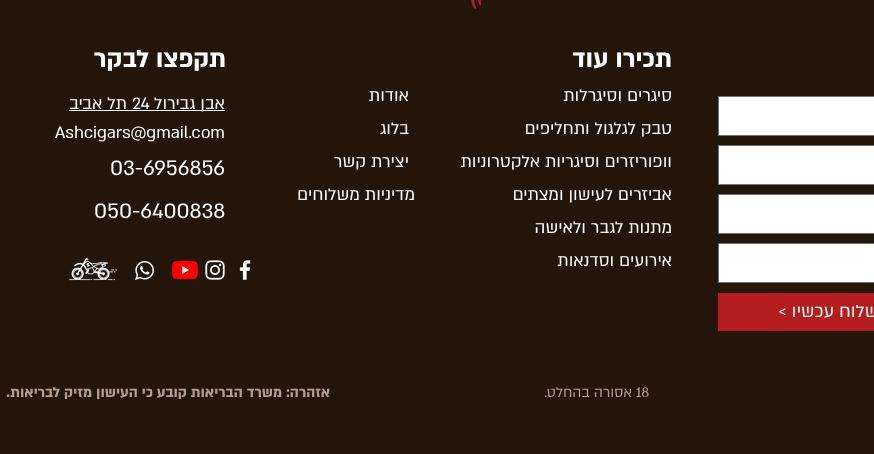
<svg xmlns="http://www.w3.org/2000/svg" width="874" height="454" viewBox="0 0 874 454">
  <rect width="100%" height="100%" fill="#24150a"/>
  <image x="471" y="0" width="11" height="10" href="img/1.png"/>
  <path d="M69 110h156v1H69z" fill="#fff"/>
  <image x="239" y="260" width="12" height="20" href="img/2.png"/>
  <image x="205" y="260" width="20" height="20" href="img/3.png"/>
  <image x="172" y="260" width="26" height="20" href="img/4.png"/>
  <image x="135" y="261" width="19" height="19" href="img/5.png"/>
  <image x="69" y="258" width="48" height="23" href="img/6.png"/>
  <path d="M718.5 96.5h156v39H718.5z" fill="#fff" stroke="#737373"/>
  <path d="M718.5 145.5h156v39H718.5z" fill="#fff" stroke="#737373"/>
  <path d="M718.5 194.5h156v39H718.5z" fill="#fff" stroke="#737373"/>
  <path d="M718.5 243.5h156v39H718.5z" fill="#fff" stroke="#737373"/>
  <path d="M718 293h156v38H718z" fill="#b41d1e"/>
  <text x="672" y="67" font-family="'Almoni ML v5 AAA'" font-size="28" font-weight="bold" direction="rtl" fill="#fff">תכירו עוד</text>
  <g font-family="'Almoni ML v5 AAA'" font-size="19" direction="rtl" fill="#fff">
    <text x="672" y="101">סיגרים וסיגרלות</text>
    <text x="672" y="134">טבק לגלגול ותחליפים</text>
    <text x="672" y="167">וופוריזרים וסיגריות אלקטרוניות</text>
    <text x="672" y="200">אביזרים לעישון ומצתים</text>
    <text x="672" y="233">מתנות לגבר ולאישה</text>
    <text x="672" y="266">אירועים וסדנאות</text>
    <text x="409" y="101">אודות</text>
    <text x="409" y="134">בלוג</text>
    <text x="409" y="167">יצירת קשר</text>
    <text x="415" y="200">מדיניות משלוחים</text>
  </g>
  <text x="226" y="67" font-family="'Almoni ML v5 AAA'" font-size="28" font-weight="bold" direction="rtl" fill="#fff">תקפצו לבקר</text>
  <text x="225" y="109" font-family="'Almoni ML v5 AAA'" font-size="19" direction="rtl" fill="#fff">אבן גבירול</text>
  <text x="132" y="109" font-family="'Almoni ML v5 AAA'" font-size="19" fill="#fff">24</text>
  <text x="127" y="109" font-family="'Almoni ML v5 AAA'" font-size="19" direction="rtl" fill="#fff">תל אביב</text>
  <text x="55" y="138" font-family="'Almoni ML v5 AAA'" font-size="19" fill="#fff">Ashcigars@gmail.com</text>
  <g font-family="'Almoni ML v5 AAA'" font-size="24" fill="#fff">
    <text x="110" y="175">03-6956856</text>
    <text x="94" y="218">050-6400838</text>
  </g>
  <text x="887" y="317" font-family="'Almoni ML v5 AAA'" font-size="20" direction="rtl" fill="#fff">לשלוח עכשיו</text>
  <text x="778" y="317" font-family="'Almoni ML v5 AAA'" font-size="20" fill="#fff">&lt;</text>
  <text x="636" y="397" font-family="'Almoni ML v5 AAA'" font-size="16" fill="#b69e8b">18</text>
  <text x="632" y="397" font-family="'Almoni ML v5 AAA'" font-size="16" direction="rtl" fill="#b69e8b">אסורה בהחלט.</text>
  <text x="330" y="397" font-family="'Almoni ML v5 AAA'" font-size="16" font-weight="bold" direction="rtl" fill="#b69e8b">אזהרה: משרד הבריאות קובע כי העישון מזיק לבריאות.</text>
</svg>
